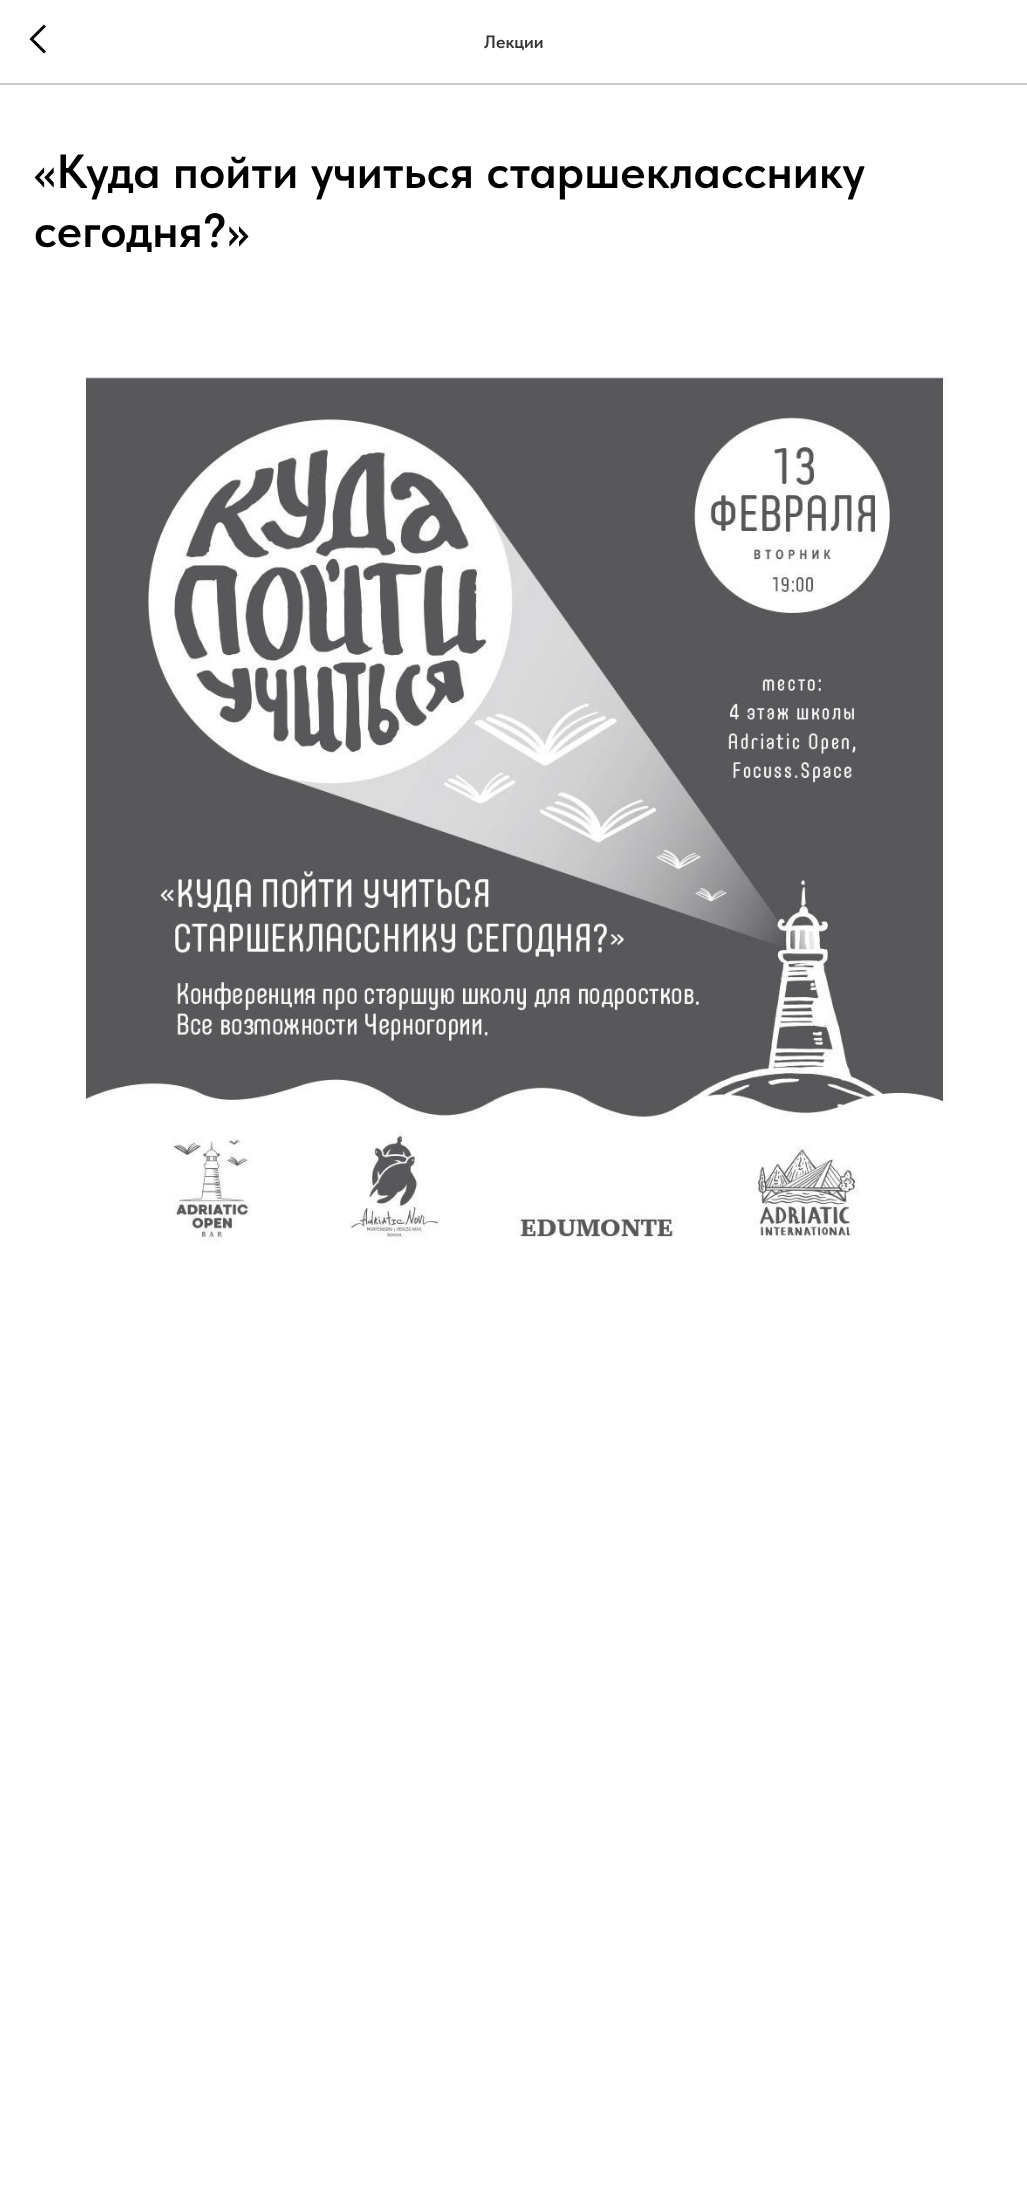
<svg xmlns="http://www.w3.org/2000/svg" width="1027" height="2190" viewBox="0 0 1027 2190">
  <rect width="100%" height="100%" fill="#fff"/>
  <path d="M0 83h1027v2H0z" fill="#ccc"/>
  <path d="M45 52.5L31.5 39L45 25.5" fill="none" stroke="#000" stroke-width="3"/>
  <image x="83" y="377" width="866" height="866" href="img/1.png"/>
  <text x="484" y="48" font-family="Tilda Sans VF" font-size="18" font-weight="600" fill="#333">Лекции</text>
  <g font-family="Tilda Sans VF" font-size="48" font-weight="600" fill="#000">
    <text x="34" y="188">«Куда пойти учиться старшекласснику</text>
    <text x="34" y="247">сегодня?»</text>
  </g>
</svg>
